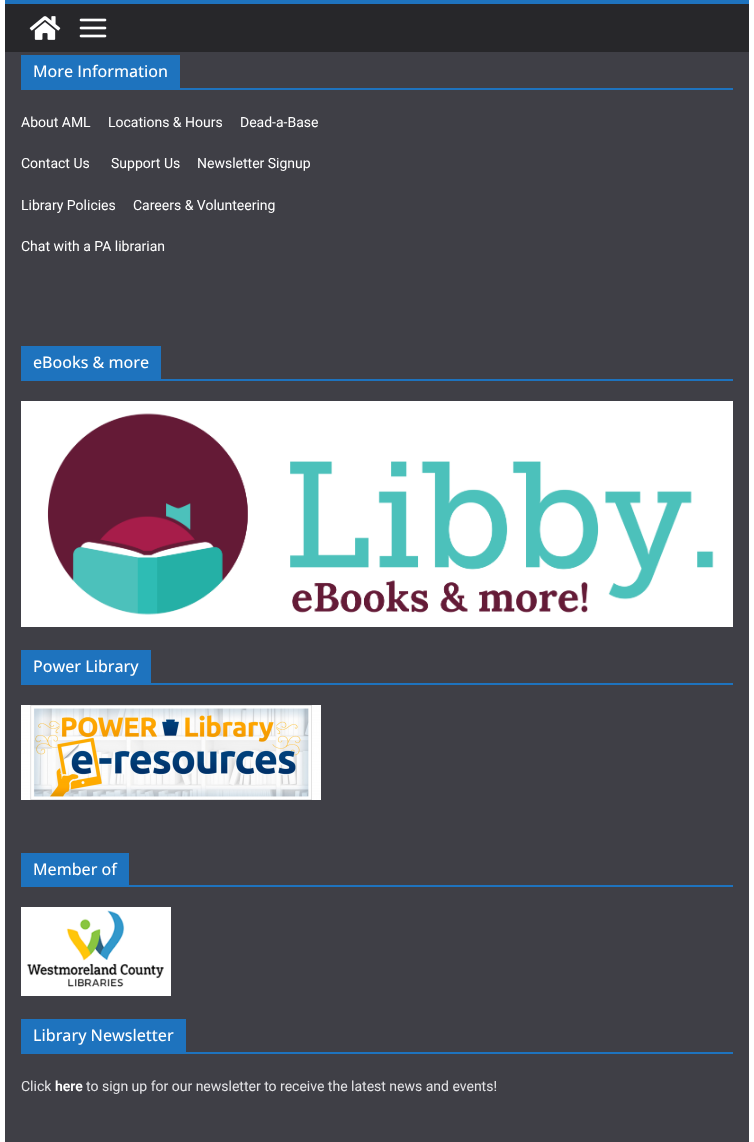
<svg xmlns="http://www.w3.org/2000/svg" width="754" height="1142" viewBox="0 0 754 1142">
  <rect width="100%" height="100%" fill="#fff"/>
  <path d="M5 4h744v48H5z" fill="#27272a"/>
  <path d="M5 0h744v4H5z" fill="#1e73be"/>
  <image x="29" y="16" width="32" height="24" href="img/1.png"/>
  <image x="79" y="18" width="28" height="20" href="img/2.png"/>
  <path d="M5 52h744v1090H5z" fill="#3f3f46"/>
  <path d="M21 88h712v2H21z" fill="#1e73be"/>
  <path d="M21 55h159v33H21z" fill="#1e73be"/>
  <path d="M21 379h712v2H21z" fill="#1e73be"/>
  <path d="M21 346h140v33H21z" fill="#1e73be"/>
  <image x="21" y="401" width="712" height="226" href="img/3.png"/>
  <path d="M21 683h712v2H21z" fill="#1e73be"/>
  <path d="M21 650h130v33H21z" fill="#1e73be"/>
  <image x="21" y="705" width="300" height="95" href="img/4.png"/>
  <path d="M21 885h712v2H21z" fill="#1e73be"/>
  <path d="M21 853h108v32H21z" fill="#1e73be"/>
  <image x="21" y="907" width="150" height="89" href="img/5.png"/>
  <path d="M21 1052h712v2H21z" fill="#1e73be"/>
  <path d="M21 1019h165v33H21z" fill="#1e73be"/>
  <text x="33" y="77" font-family="Open Sans" font-size="16" font-weight="500" fill="#fff">More Information</text>
  <g font-family="Roboto" font-size="14" fill="#fff">
    <text x="21" y="127">About AML</text>
    <text x="108" y="127">Locations &amp; Hours</text>
    <text x="240" y="127">Dead-a-Base</text>
    <text x="21" y="168">Contact Us</text>
    <text x="111" y="168">Support Us</text>
    <text x="197" y="168">Newsletter Signup</text>
    <text x="21" y="210">Library Policies</text>
    <text x="133" y="210">Careers &amp; Volunteering</text>
    <text x="21" y="251">Chat with a PA librarian</text>
  </g>
  <g font-family="Open Sans" font-size="16" font-weight="500" fill="#fff">
    <text x="33" y="368">eBooks &amp; more</text>
    <text x="33" y="672">Power Library</text>
    <text x="33" y="875">Member of</text>
    <text x="33" y="1041">Library Newsletter</text>
  </g>
  <text x="21" y="1091" font-family="Roboto" font-size="14" fill="#e4e4e7">Click</text>
  <text x="55" y="1091" font-family="Roboto" font-size="14" font-weight="600" fill="#fff">here</text>
  <text x="86" y="1091" font-family="Roboto" font-size="14" fill="#e4e4e7">to sign up for our newsletter to receive the latest news and events!</text>
</svg>
